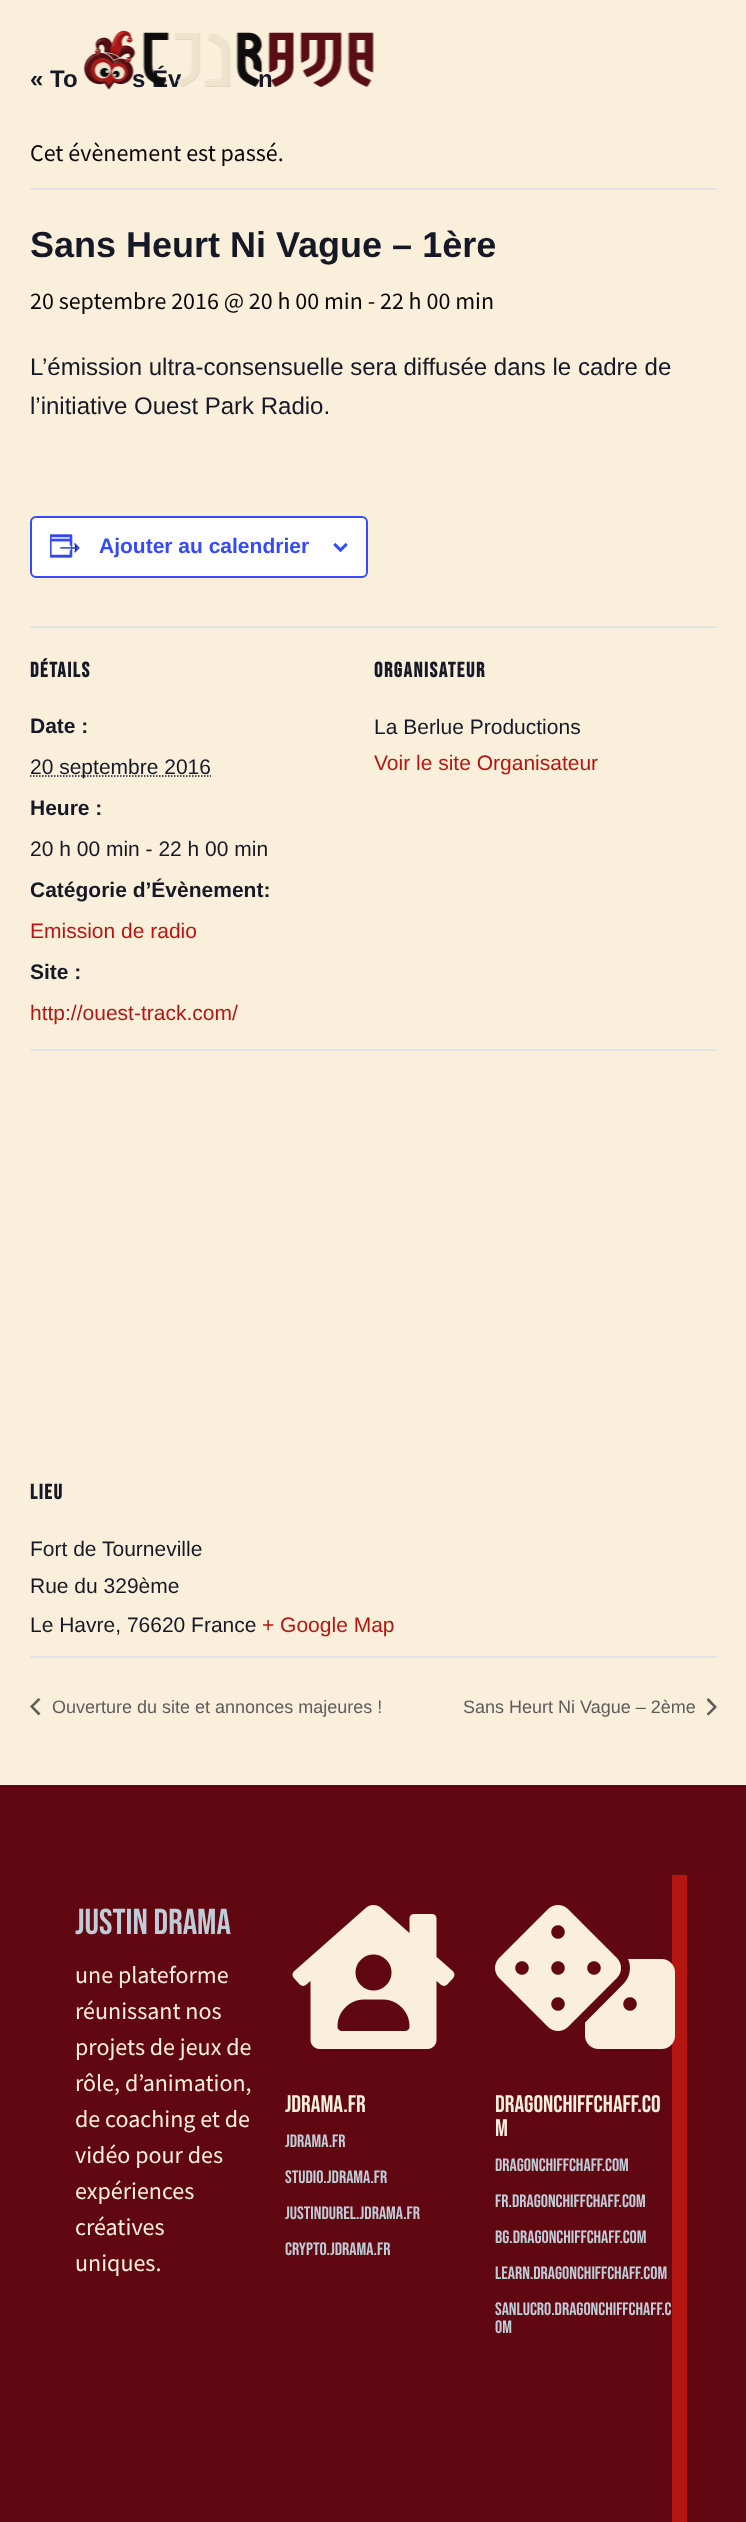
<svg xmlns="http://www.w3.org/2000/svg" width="746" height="2522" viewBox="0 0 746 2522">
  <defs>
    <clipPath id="clip1"><path d="M707 1698h10v18H707z"/></clipPath>
  </defs>
  <rect width="100%" height="100%" fill="#faefda"/>
  <path d="M30 188h687v2H30z" fill="#e4e4e4"/>
  <rect x="31" y="517" width="336" height="60" rx="5" fill="#fff" stroke="#334aff" stroke-width="2"/>
  <image x="50" y="534" width="30" height="24" href="img/2.png"/>
  <image x="333" y="543" width="15" height="9" href="img/3.png"/>
  <path d="M30 626h687v2H30z" fill="#e4e4e4"/>
  <path d="M30 776H211" fill="none" stroke="#141827" stroke-width="1.5" stroke-dasharray="1.5 1.5"/>
  <path d="M30 1049h687v2H30z" fill="#e4e4e4"/>
  <path d="M30 1656h687v2H30z" fill="#e4e4e4"/>
  <path d="M40.5 1713.5L38.5 1715.5L30 1706.5L38.5 1698L40.5 1699.5L33.5 1706.5Z" fill="#5d5d5d"/>
  <g clip-path="url(#clip1)">
    <path d="M706.5 1700L708.5 1698L717 1707L708.5 1715.5L706.5 1714L713.5 1707Z" fill="#5d5d5d"/>
  </g>
  <path d="M0 1785h746v737H0z" fill="#600711"/>
  <path d="M90 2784V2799H687V1875H672V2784Z" fill="#b71511"/>
  <image x="292" y="1905" width="163" height="144" href="img/4.png"/>
  <image x="495" y="1905" width="180" height="144" href="img/5.png"/>
  <g font-family="Liberation Sans" font-size="24" font-weight="bold" fill="#141827">
    <text x="30" y="87">« To</text>
    <text x="132" y="87">s Év</text>
    <text x="258" y="87">n</text>
  </g>
  <image x="83" y="30" width="291" height="60" href="img/1.png"/>
  <text x="30" y="161" font-family="Source Sans Pro" font-size="24" fill="#090608">Cet évènement est passé.</text>
  <text x="30" y="257" font-family="Liberation Sans" font-size="36" font-weight="bold" fill="#141827">Sans Heurt Ni Vague – 1ère</text>
  <text x="30" y="309" font-family="Source Sans Pro" font-size="24" fill="#090608">20 septembre 2016 @ 20 h 00 min - 22 h 00 min</text>
  <g font-family="Liberation Sans" font-size="24" fill="#141827">
    <text x="30" y="375">L’émission ultra-consensuelle sera diffusée dans le cadre de</text>
    <text x="30" y="414">l’initiative Ouest Park Radio.</text>
  </g>
  <text x="99" y="553" font-family="Liberation Sans" font-size="21" font-weight="bold" fill="#334aff">Ajouter au calendrier</text>
  <text x="30" y="677" font-family="Bebas Neue" font-size="21" font-weight="bold" letter-spacing="1.5" fill="#141827">DÉTAILS</text>
  <text x="30" y="733" font-family="Liberation Sans" font-size="21" font-weight="bold" fill="#141827">Date :</text>
  <text x="30" y="774" font-family="Liberation Sans" font-size="21" fill="#141827">20 septembre 2016</text>
  <text x="30" y="815" font-family="Liberation Sans" font-size="21" font-weight="bold" fill="#141827">Heure :</text>
  <text x="30" y="856" font-family="Liberation Sans" font-size="21" fill="#141827">20 h 00 min - 22 h 00 min</text>
  <text x="30" y="897" font-family="Liberation Sans" font-size="21" font-weight="bold" fill="#141827">Catégorie d’Évènement:</text>
  <text x="30" y="938" font-family="Liberation Sans" font-size="21" fill="#b71511">Emission de radio</text>
  <text x="30" y="979" font-family="Liberation Sans" font-size="21" font-weight="bold" fill="#141827">Site :</text>
  <text x="30" y="1020" font-family="Liberation Sans" font-size="21" fill="#b71511">http://ouest-track.com/</text>
  <text x="374" y="677" font-family="Bebas Neue" font-size="21" font-weight="bold" letter-spacing="1.5" fill="#141827">ORGANISATEUR</text>
  <text x="374" y="734" font-family="Liberation Sans" font-size="21" fill="#141827">La Berlue Productions</text>
  <text x="374" y="770" font-family="Liberation Sans" font-size="21" fill="#b71511">Voir le site Organisateur</text>
  <text x="30" y="1499" font-family="Bebas Neue" font-size="21" font-weight="bold" letter-spacing="1.5" fill="#141827">LIEU</text>
  <g font-family="Liberation Sans" font-size="21" fill="#141827">
    <text x="30" y="1556">Fort de Tourneville</text>
    <text x="30" y="1593">Rue du 329ème</text>
    <text x="30" y="1632">Le Havre, 76620 France</text>
  </g>
  <text x="262" y="1632" font-family="Liberation Sans" font-size="21" fill="#b71511">+ Google Map</text>
  <g font-family="Liberation Sans" font-size="18" fill="#5d5d5d">
    <text x="52" y="1713">Ouverture du site et annonces majeures !</text>
    <text x="463" y="1713">Sans Heurt Ni Vague – 2ème</text>
  </g>
  <text x="75" y="1934" font-family="Bebas Neue" font-size="36" fill="#becdd7">Justin Drama</text>
  <g font-family="Source Sans Pro" font-size="24" fill="#faefda">
    <text x="75" y="1983">une plateforme</text>
    <text x="75" y="2019">réunissant nos</text>
    <text x="75" y="2055">projets de jeux de</text>
    <text x="75" y="2091">rôle, d’animation,</text>
    <text x="75" y="2127">de coaching et de</text>
    <text x="75" y="2163">vidéo pour des</text>
    <text x="75" y="2199">expériences</text>
    <text x="75" y="2235">créatives</text>
    <text x="75" y="2271">uniques.</text>
  </g>
  <text x="285" y="2112" font-family="Bebas Neue" font-size="24" fill="#faefda">JDRAMA.FR</text>
  <g font-family="Bebas Neue" font-size="18" fill="#becdd7">
    <text x="285" y="2147">JDRAMA.FR</text>
    <text x="285" y="2183">STUDIO.JDRAMA.FR</text>
    <text x="285" y="2219">JUSTINDUREL.JDRAMA.FR</text>
    <text x="285" y="2255">CRYPTO.JDRAMA.FR</text>
  </g>
  <g font-family="Bebas Neue" font-size="24" fill="#faefda">
    <text x="495" y="2112">DRAGONCHIFFCHAFF.CO</text>
    <text x="495" y="2136">M</text>
  </g>
  <g font-family="Bebas Neue" font-size="18" fill="#becdd7">
    <text x="495" y="2171">DRAGONCHIFFCHAFF.COM</text>
    <text x="495" y="2207">FR.DRAGONCHIFFCHAFF.COM</text>
    <text x="495" y="2243">BG.DRAGONCHIFFCHAFF.COM</text>
    <text x="495" y="2279">LEARN.DRAGONCHIFFCHAFF.COM</text>
    <text x="495" y="2315">SANLUCRO.DRAGONCHIFFCHAFF.C</text>
    <text x="495" y="2333">OM</text>
  </g>
</svg>
